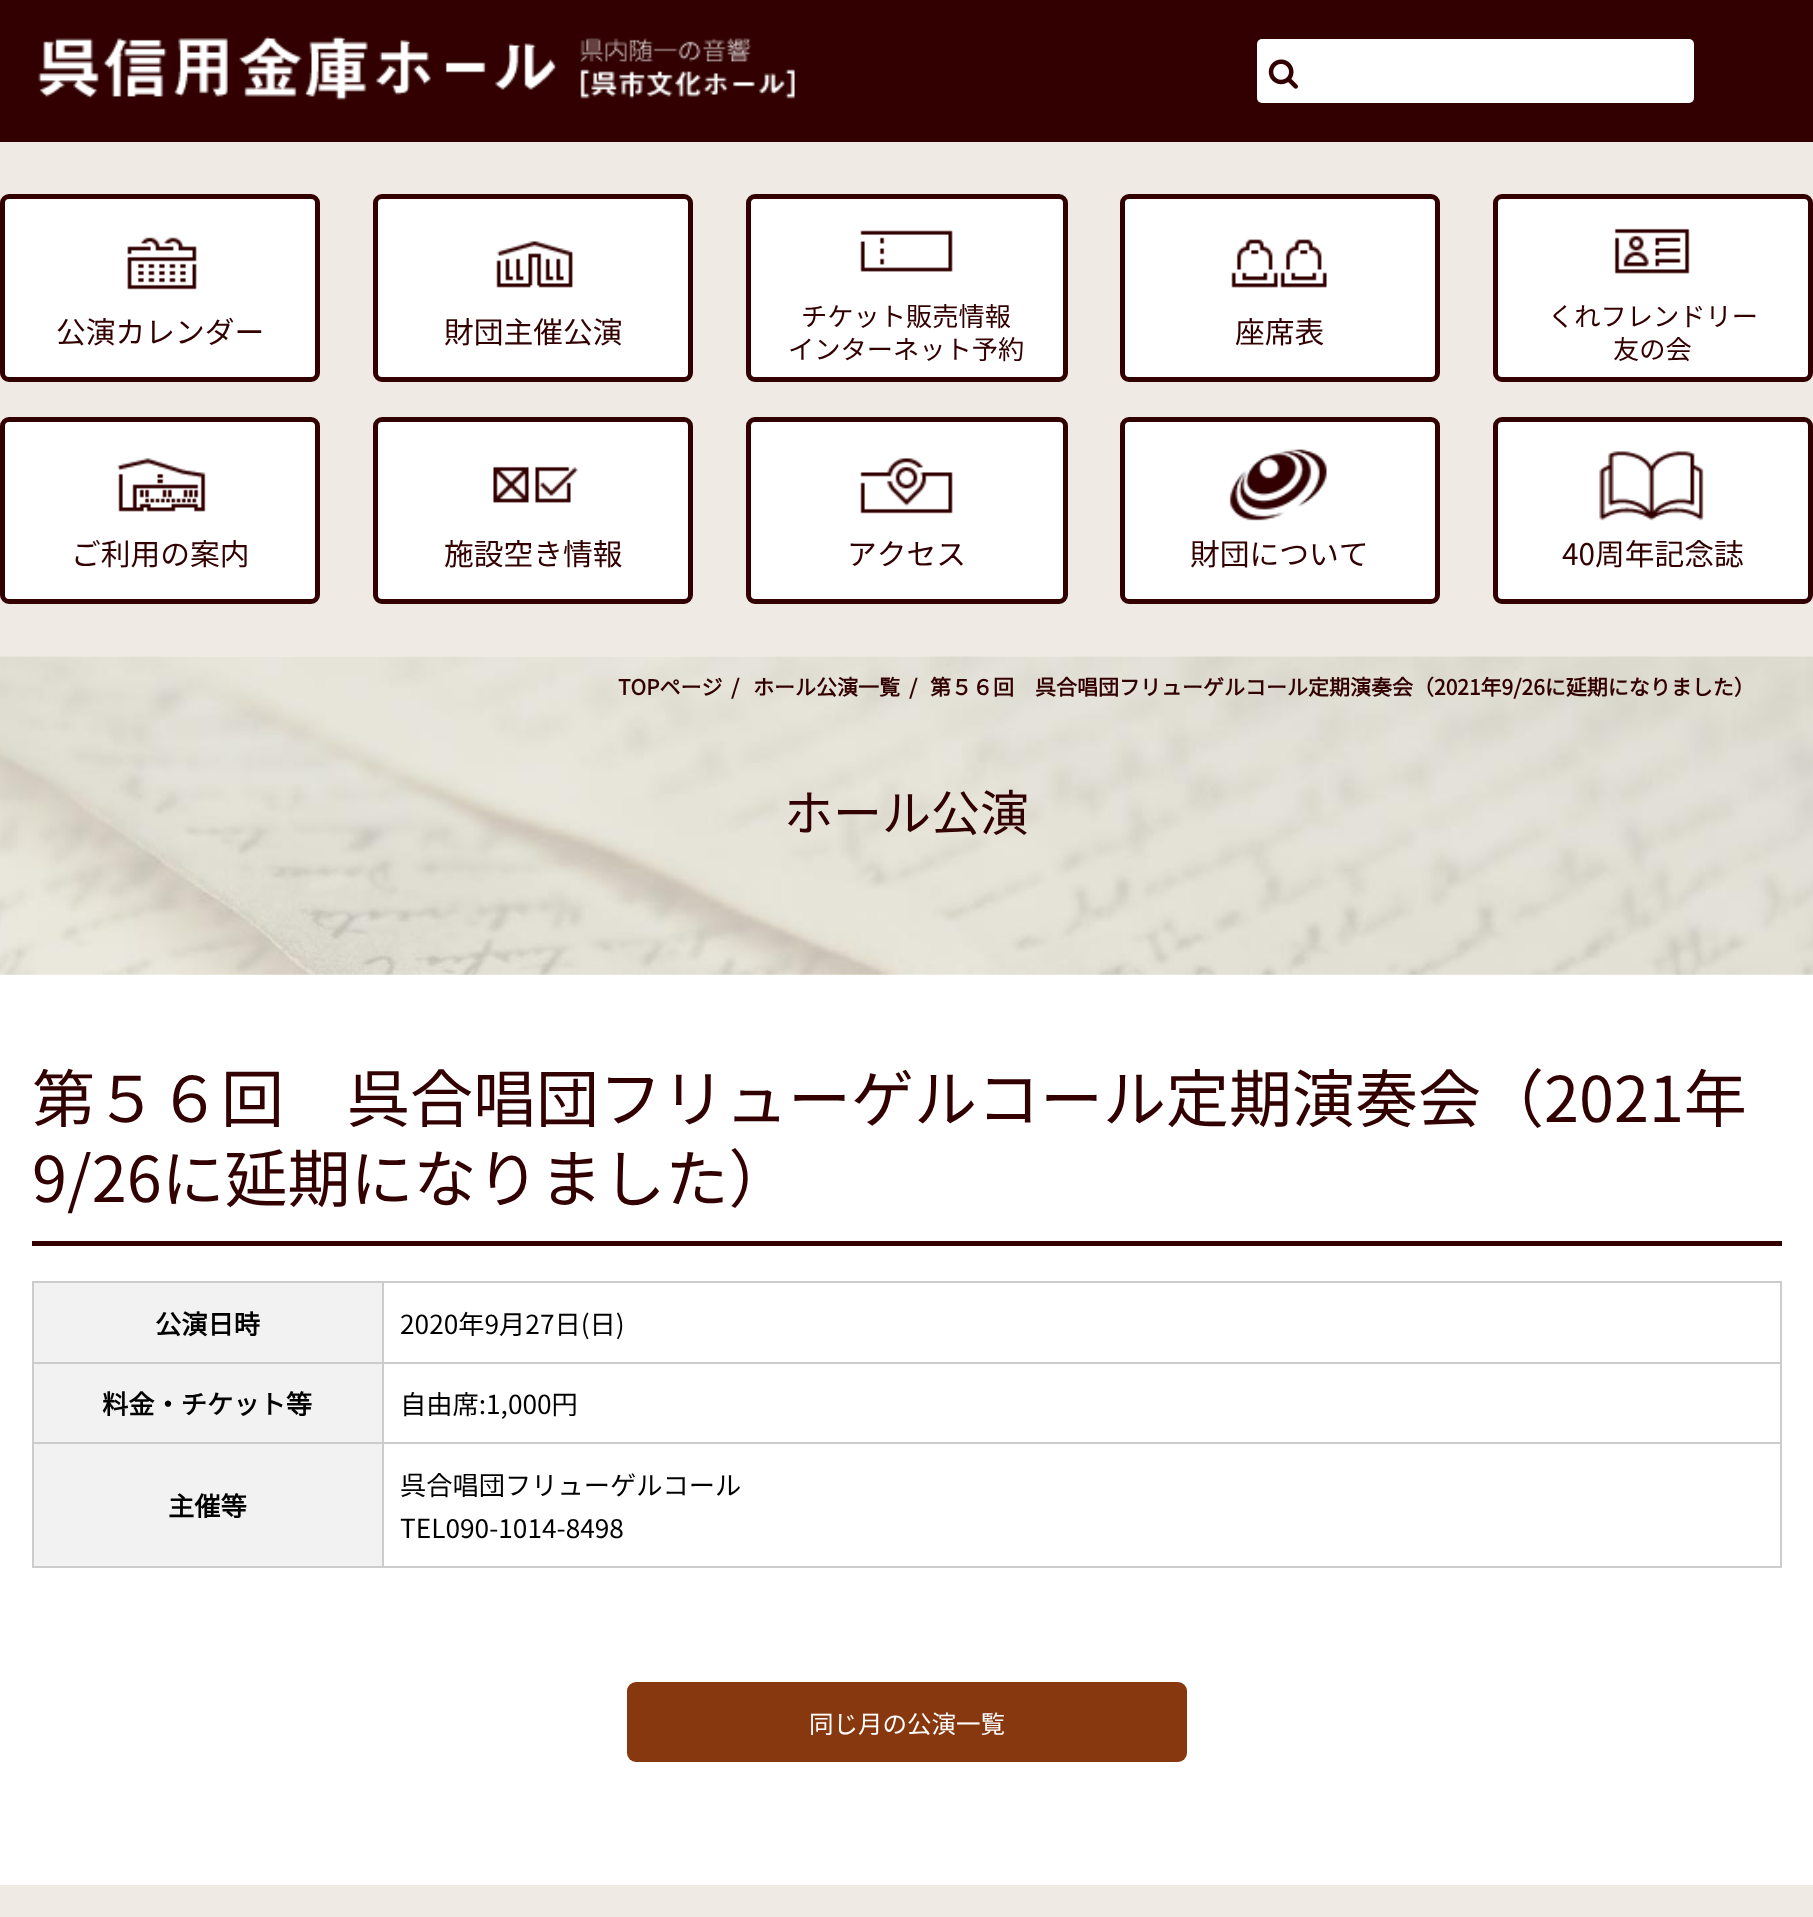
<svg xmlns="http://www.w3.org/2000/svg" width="1813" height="1917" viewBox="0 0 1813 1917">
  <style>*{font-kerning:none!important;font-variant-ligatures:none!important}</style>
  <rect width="100%" height="100%" fill="#fff"/>
  <path d="M0 0h1813v142H0z" fill="#320000"/>
  <image x="38" y="36" width="757" height="65" href="img/1.png"/>
  <rect x="1257" y="39" width="437" height="64" rx="5" fill="#fff"/>
  <image x="1268" y="59" width="30" height="30" href="img/2.png"/>
  <path d="M0 142h1813v514H0z" fill="#f0eae4"/>
  <rect x="2.5" y="196.5" width="315" height="183" rx="6.5" fill="#fff" stroke="#320000" stroke-width="5"/>
  <image x="127" y="237" width="70" height="53" href="img/3.png"/>
  <rect x="375.5" y="196.5" width="315" height="183" rx="6.5" fill="#fff" stroke="#320000" stroke-width="5"/>
  <image x="496" y="241" width="77" height="47" href="img/4.png"/>
  <rect x="748.5" y="196.5" width="317" height="183" rx="6.5" fill="#fff" stroke="#320000" stroke-width="5"/>
  <image x="860" y="230" width="93" height="42" href="img/5.png"/>
  <rect x="1122.5" y="196.5" width="315" height="183" rx="6.5" fill="#fff" stroke="#320000" stroke-width="5"/>
  <image x="1231" y="239" width="96" height="49" href="img/6.png"/>
  <rect x="1495.5" y="196.5" width="315" height="183" rx="6.5" fill="#fff" stroke="#320000" stroke-width="5"/>
  <image x="1614" y="228" width="76" height="46" href="img/7.png"/>
  <rect x="2.5" y="419.5" width="315" height="182" rx="6.5" fill="#fff" stroke="#320000" stroke-width="5"/>
  <image x="117" y="458" width="89" height="54" href="img/8.png"/>
  <rect x="375.5" y="419.5" width="315" height="182" rx="6.5" fill="#fff" stroke="#320000" stroke-width="5"/>
  <image x="493" y="466" width="85" height="37" href="img/9.png"/>
  <rect x="748.5" y="419.5" width="317" height="182" rx="6.5" fill="#fff" stroke="#320000" stroke-width="5"/>
  <image x="860" y="458" width="93" height="56" href="img/10.png"/>
  <rect x="1122.5" y="419.5" width="315" height="182" rx="6.5" fill="#fff" stroke="#320000" stroke-width="5"/>
  <image x="1229" y="449" width="98" height="72" href="img/11.png"/>
  <rect x="1495.5" y="419.5" width="315" height="182" rx="6.5" fill="#fff" stroke="#320000" stroke-width="5"/>
  <image x="1599" y="451" width="105" height="70" href="img/12.png"/>
  <image x="0" y="656" width="1813" height="319" href="img/13.png"/>
  <path d="M32 1241h1750v5H32z" fill="#320000"/>
  <path d="M34 1283h348v79H34z" fill="#f2f2f2"/>
  <path d="M382 1281h1400v2H382z" fill="#ccc"/>
  <path d="M382 1362h1400v2H382z" fill="#ccc"/>
  <path d="M382 1442h1400v2H382z" fill="#ccc"/>
  <path d="M1780 1442h2v126H1780z" fill="#ccc"/>
  <path d="M382 1566h1400v2H382z" fill="#ccc"/>
  <path d="M382 1442h2v126H382z" fill="#ccc"/>
  <path d="M32 1442h351v2H32z" fill="#ccc"/>
  <path d="M382 1362h2v82H382z" fill="#ccc"/>
  <path d="M32 1362h351v2H32z" fill="#ccc"/>
  <path d="M382 1281h2v82H382z" fill="#ccc"/>
  <path d="M32 1281h351v2H32z" fill="#ccc"/>
  <path d="M32 1566h351v2H32z" fill="#ccc"/>
  <path d="M32 1442h2v126H32z" fill="#ccc"/>
  <path d="M32 1362h2v82H32z" fill="#ccc"/>
  <path d="M32 1281h2v82H32z" fill="#ccc"/>
  <path d="M1780 1362h2v82H1780z" fill="#ccc"/>
  <path d="M1780 1281h2v82H1780z" fill="#ccc"/>
  <path d="M34 1364h348v78H34z" fill="#f2f2f2"/>
  <path d="M34 1444h348v122H34z" fill="#f2f2f2"/>
  <rect x="627" y="1682" width="560" height="80" rx="9" fill="#88380f"/>
  <path d="M0 1885h1813v32H0z" fill="#f0eae4"/>
  <g font-family="Noto Sans JP" font-size="29.75" font-weight="100" fill="#320000">
    <text x="56" y="343">公演カレンダー</text>
    <text x="444" y="343">財団主催公演</text>
  </g>
  <g font-family="Noto Sans JP" font-size="26.25" font-weight="100" fill="#320000">
    <text x="801" y="326">チケット販売情報</text>
    <text x="788" y="359">インターネット予約</text>
  </g>
  <text x="1235" y="343" font-family="Noto Sans JP" font-size="29.75" font-weight="100" fill="#320000">座席表</text>
  <g font-family="Noto Sans JP" font-size="26.25" font-weight="100" fill="#320000">
    <text x="1548" y="326">くれフレンドリー</text>
    <text x="1613" y="359">友の会</text>
  </g>
  <g font-family="Noto Sans JP" font-size="29.75" font-weight="100" fill="#320000">
    <text x="71" y="565">ご利用の案内</text>
    <text x="444" y="565">施設空き情報</text>
    <text x="847" y="565">アクセス</text>
    <text x="1190" y="565">財団について</text>
    <text x="1562" y="565">40周年記念誌</text>
  </g>
  <g font-family="Noto Sans JP" font-size="21" font-weight="bold" fill="#320000">
    <text x="618" y="695">TOPページ</text>
    <text x="731" y="695">/</text>
    <text x="753" y="695">ホール公演一覧</text>
    <text x="909" y="695">/</text>
    <text x="930" y="695">第５６回　呉合唱団フリューゲルコール定期演奏会（2021年9/26に延期になりました）</text>
  </g>
  <text x="784" y="831" font-family="Noto Sans JP" font-size="49" font-weight="100" fill="#320000">ホール公演</text>
  <g font-family="Noto Sans JP" font-size="63" font-weight="100" fill="#320000">
    <text x="32" y="1122">第５６回　呉合唱団フリューゲルコール定期演奏会（2021年</text>
    <text x="32" y="1202">9/26に延期になりました）</text>
  </g>
  <text x="155" y="1334" font-family="Noto Sans JP" font-size="26.25" font-weight="bold" fill="#000">公演日時</text>
  <text x="400" y="1334" font-family="Noto Sans JP" font-size="26.25" font-weight="100" fill="#000">2020年9月27日(日)</text>
  <text x="102" y="1414" font-family="Noto Sans JP" font-size="26.25" font-weight="bold" fill="#000">料金・チケット等</text>
  <text x="400" y="1414" font-family="Noto Sans JP" font-size="26.25" font-weight="100" fill="#000">自由席:1,000円</text>
  <text x="168" y="1516" font-family="Noto Sans JP" font-size="26.25" font-weight="bold" fill="#000">主催等</text>
  <g font-family="Noto Sans JP" font-size="26.25" font-weight="100" fill="#000">
    <text x="400" y="1495">呉合唱団フリューゲルコール</text>
    <text x="400" y="1538">TEL090-1014-8498</text>
  </g>
  <text x="809" y="1733" font-family="Noto Sans JP" font-size="24.5" font-weight="100" fill="#fff">同じ月の公演一覧</text>
</svg>
